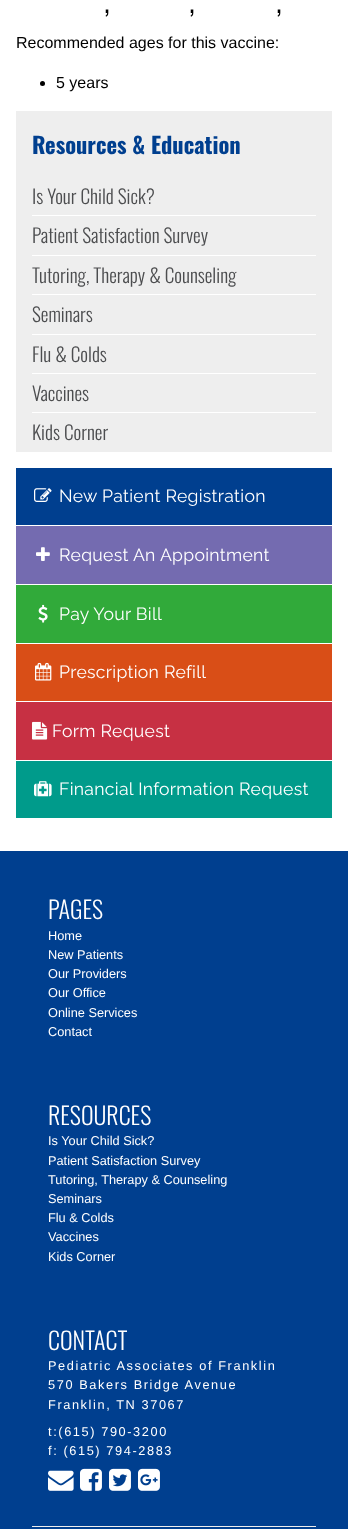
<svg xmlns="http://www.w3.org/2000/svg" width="348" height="1529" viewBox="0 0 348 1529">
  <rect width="100%" height="100%" fill="#fff"/>
  <circle cx="42.5" cy="83.5" r="2.5" fill="#000"/>
  <path d="M16 111h316v341H16z" fill="#eee"/>
  <path d="M32 215h284v1H32z" fill="#fff"/>
  <path d="M32 255h284v1H32z" fill="#fff"/>
  <path d="M32 294h284v1H32z" fill="#fff"/>
  <path d="M32 334h284v1H32z" fill="#fff"/>
  <path d="M32 373h284v1H32z" fill="#fff"/>
  <path d="M32 412h284v1H32z" fill="#fff"/>
  <path d="M16 468h316v57H16z" fill="#003f8f"/>
  <image x="34" y="488" width="18" height="14" href="img/1.png"/>
  <path d="M16 526h316v58H16z" fill="#746bb0"/>
  <image x="36" y="547" width="14" height="14" href="img/2.png"/>
  <path d="M16 585h316v58H16z" fill="#31aa3a"/>
  <image x="38" y="604" width="10" height="19" href="img/3.png"/>
  <path d="M16 644h316v57H16z" fill="#d94e17"/>
  <image x="35" y="662" width="17" height="19" href="img/4.png"/>
  <path d="M16 702h316v58H16z" fill="#c73043"/>
  <image x="32" y="721" width="16" height="19" href="img/5.png"/>
  <path d="M16 761h316v57H16z" fill="#009b8b"/>
  <image x="34" y="781" width="18" height="16" href="img/6.png"/>
  <path d="M0 851h348v678H0z" fill="#003f8f"/>
  <image x="48" y="1470" width="26" height="21" href="img/7.png"/>
  <image x="80" y="1468" width="22" height="23" href="img/8.png"/>
  <image x="109" y="1468" width="22" height="23" href="img/9.png"/>
  <image x="138" y="1468" width="22" height="23" href="img/10.png"/>
  <path d="M32 1526h284v1H32z" fill="#eee"/>
  <g font-family="Oswald" font-size="32" font-weight="300" fill="#000">
    <text x="104" y="13">,</text>
    <text x="189" y="13">,</text>
    <text x="276" y="13">,</text>
  </g>
  <g font-family="Liberation Sans" font-size="16" fill="#000">
    <text x="16" y="48">Recommended ages for this vaccine:</text>
    <text x="56" y="88">5 years</text>
  </g>
  <text x="32" y="154" font-family="Oswald" font-size="22.5" font-weight="bold" fill="#003f8f">Resources &amp; Education</text>
  <g font-family="Oswald" font-size="19.25" font-weight="300" fill="#4c4d4f">
    <text x="32" y="204">Is Your Child Sick?</text>
    <text x="32" y="243">Patient Satisfaction Survey</text>
    <text x="32" y="283">Tutoring, Therapy &amp; Counseling</text>
    <text x="32" y="322">Seminars</text>
    <text x="32" y="362">Flu &amp; Colds</text>
    <text x="32" y="401">Vaccines</text>
    <text x="32" y="440">Kids Corner</text>
  </g>
  <g font-family="Raleway" font-size="17.6" letter-spacing="0.3" fill="#fff">
    <text x="59" y="502">New Patient Registration</text>
    <text x="59" y="561">Request An Appointment</text>
    <text x="59" y="620">Pay Your Bill</text>
    <text x="59" y="678">Prescription Refill</text>
    <text x="52" y="737">Form Request</text>
    <text x="59" y="795">Financial Information Request</text>
  </g>
  <text x="48" y="919" font-family="Oswald" font-size="24" font-weight="300" fill="#fff">PAGES</text>
  <g font-family="Liberation Sans" font-size="12.75" fill="#fff">
    <text x="48" y="940">Home</text>
    <text x="48" y="959">New Patients</text>
    <text x="48" y="978">Our Providers</text>
    <text x="48" y="997">Our Office</text>
    <text x="48" y="1017">Online Services</text>
    <text x="48" y="1036">Contact</text>
  </g>
  <text x="48" y="1125" font-family="Oswald" font-size="24" font-weight="300" fill="#fff">RESOURCES</text>
  <g font-family="Liberation Sans" font-size="12.75" fill="#fff">
    <text x="48" y="1145">Is Your Child Sick?</text>
    <text x="48" y="1165">Patient Satisfaction Survey</text>
    <text x="48" y="1184">Tutoring, Therapy &amp; Counseling</text>
    <text x="48" y="1203">Seminars</text>
    <text x="48" y="1222">Flu &amp; Colds</text>
    <text x="48" y="1241">Vaccines</text>
    <text x="48" y="1261">Kids Corner</text>
  </g>
  <text x="48" y="1350" font-family="Oswald" font-size="24" font-weight="300" fill="#fff">CONTACT</text>
  <g font-family="Liberation Sans" font-size="12.75" letter-spacing="1.6" fill="#fff">
    <text x="48" y="1370">Pediatric Associates of Franklin</text>
    <text x="48" y="1389">570 Bakers Bridge Avenue</text>
    <text x="48" y="1409">Franklin, TN 37067</text>
    <text x="48" y="1436">t:(615) 790-3200</text>
    <text x="48" y="1455">f: (615) 794-2883</text>
  </g>
</svg>
